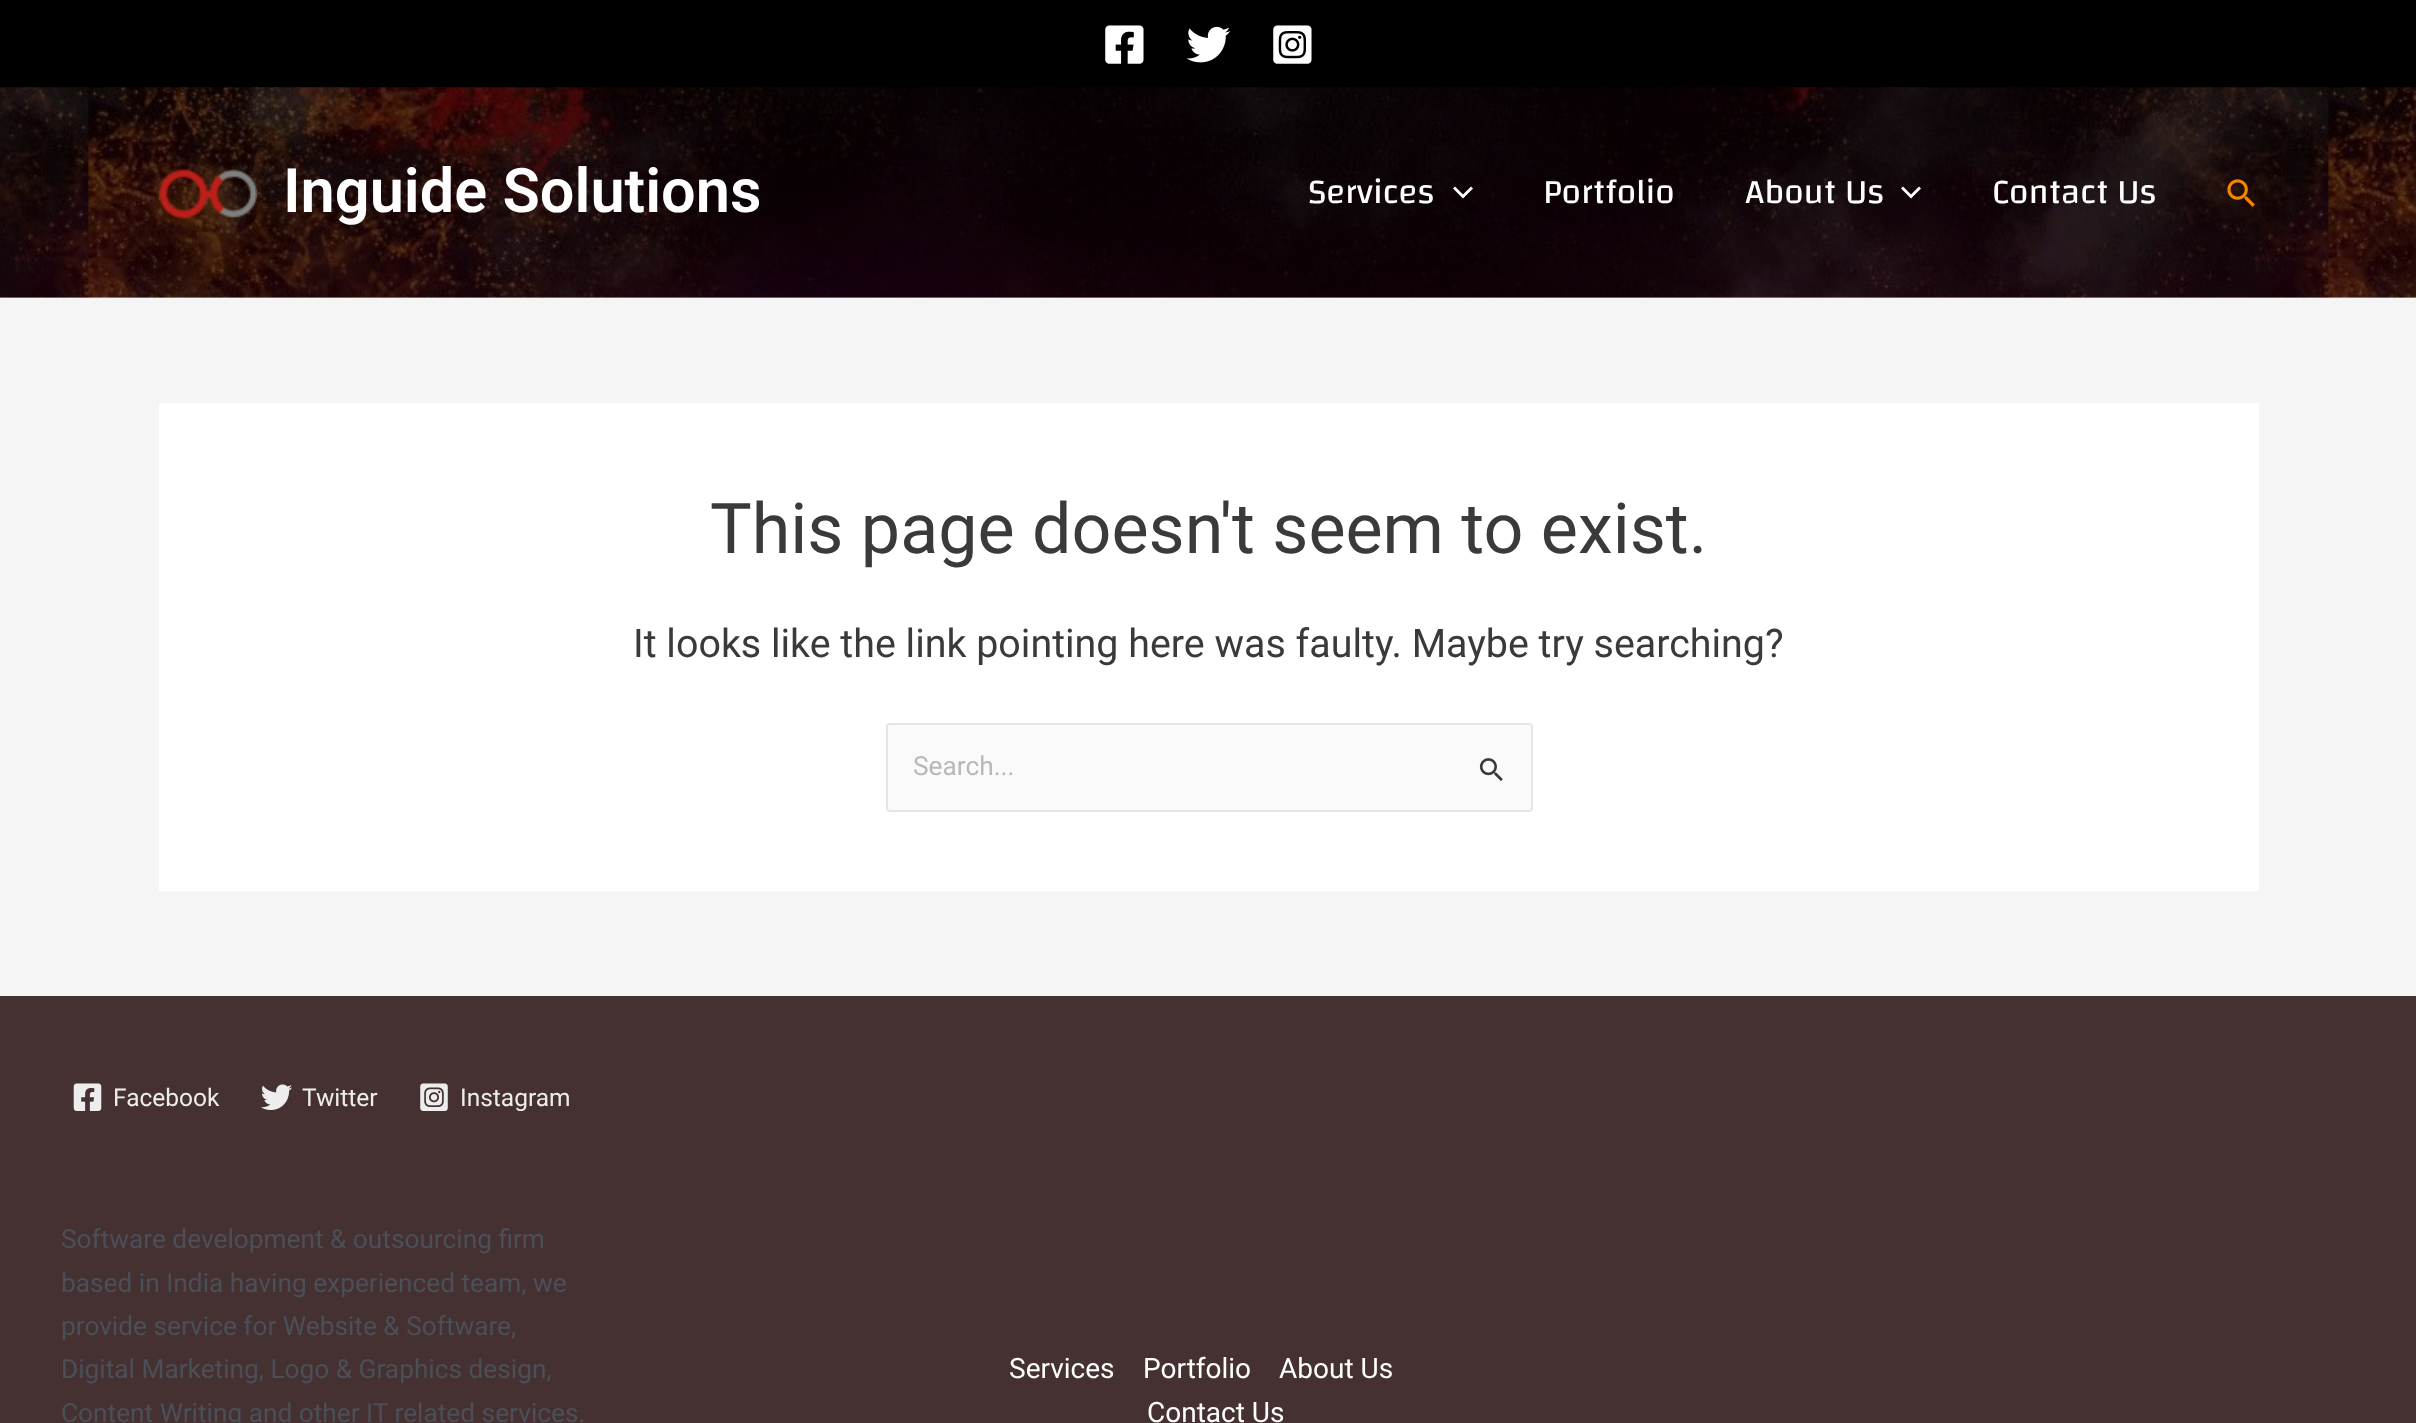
<svg xmlns="http://www.w3.org/2000/svg" width="2416" height="1423" viewBox="0 0 2416 1423">
  <rect width="100%" height="100%" fill="#f5f5f5"/>
  <path d="M0 0h2416v88H0z" fill="#000"/>
  <image x="1105" y="25" width="39" height="39" href="img/1.png"/>
  <image x="1187" y="26" width="43" height="37" href="img/2.png"/>
  <image x="1273" y="25" width="39" height="39" href="img/3.png"/>
  <path d="M0 297h2416v1H0z" fill="#fff"/>
  <image x="0" y="87" width="2416" height="211" href="img/4.png"/>
  <image x="159" y="169" width="99" height="50" href="img/5.png"/>
  <path d="M1453 188.5L1463 198.5L1473 188.5L1471 186.5L1463 194.5L1455 186.5Z" fill="#fff"/>
  <path d="M1901 188.5L1911 198.5L1921 188.5L1919 186.5L1911 194.5L1903 186.5Z" fill="#fff"/>
  <image x="2227" y="179" width="28" height="28" href="img/6.png"/>
  <path d="M159 403h2100v488H159z" fill="#fff"/>
  <rect x="887" y="724" width="645" height="87" rx="3" fill="#fafafa" stroke="#e5e5e5" stroke-width="2"/>
  <image x="1479" y="758" width="24" height="23" href="img/7.png"/>
  <path d="M0 996h2416v427H0z" fill="#453131"/>
  <image x="73" y="1083" width="29" height="28" href="img/8.png"/>
  <image x="261" y="1084" width="31" height="26" href="img/9.png"/>
  <image x="420" y="1083" width="28" height="28" href="img/10.png"/>
  <text x="283" y="212" font-family="Roboto" font-size="61.25" font-weight="600" fill="#fff">Inguide Solutions</text>
  <g font-family="Changa" font-size="35" fill="#fff">
    <text x="1308" y="203">Services</text>
    <text x="1543" y="203">Portfolio</text>
    <text x="1745" y="203">About Us</text>
    <text x="1992" y="203">Contact Us</text>
  </g>
  <text x="710" y="553" font-family="Roboto" font-size="70" fill="#3a3a3a">This page doesn't seem to exist.</text>
  <text x="633" y="657" font-family="Roboto" font-size="39.4" fill="#3a3a3a">It looks like the link pointing here was faulty. Maybe try searching?</text>
  <text x="913" y="775" font-family="Roboto" font-size="26.25" fill="#b8b8b8">Search...</text>
  <g font-family="Roboto" font-size="24.5" fill="#eeeded">
    <text x="113" y="1106">Facebook</text>
    <text x="302" y="1106">Twitter</text>
    <text x="460" y="1106">Instagram</text>
  </g>
  <g font-family="Roboto" font-size="26.25" fill="#4b4f58">
    <text x="61" y="1248">Software development &amp; outsourcing firm</text>
    <text x="61" y="1292">based in India having experienced team, we</text>
    <text x="61" y="1335">provide service for Website &amp; Software,</text>
    <text x="61" y="1378">Digital Marketing, Logo &amp; Graphics design,</text>
    <text x="61" y="1422">Content Writing and other IT related services.</text>
  </g>
  <g font-family="Roboto" font-size="28" fill="#fff">
    <text x="1009" y="1378">Services</text>
    <text x="1143" y="1378">Portfolio</text>
    <text x="1279" y="1378">About Us</text>
    <text x="1147" y="1422">Contact Us</text>
  </g>
</svg>
